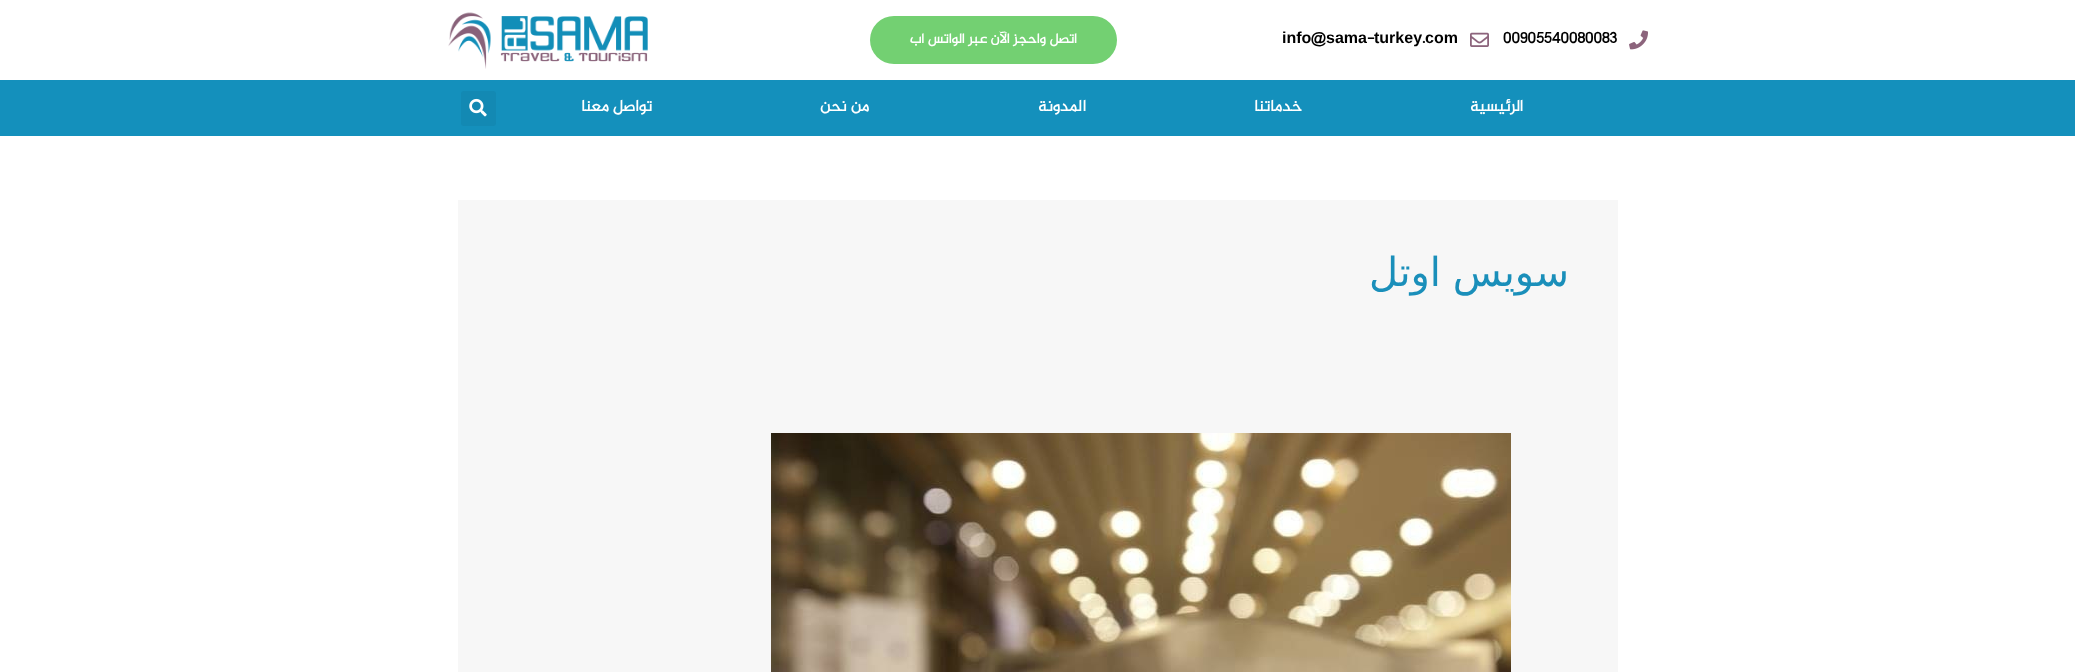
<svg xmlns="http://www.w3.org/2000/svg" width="2075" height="672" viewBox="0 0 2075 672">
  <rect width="100%" height="100%" fill="#fff"/>
  <image x="1629" y="30" width="19" height="20" href="img/1.png"/>
  <image x="1470" y="32" width="19" height="15" href="img/2.png"/>
  <rect x="870" y="16" width="247" height="48" rx="24" fill="#73d072"/>
  <image x="448" y="12" width="200" height="57" href="img/3.png"/>
  <path d="M0 80h2075v56H0z" fill="#1490bc"/>
  <rect x="461" y="91" width="35" height="35" rx="3" fill="#1389b3"/>
  <image x="469" y="98" width="18" height="19" href="img/4.png"/>
  <path d="M458 200h1160v472H458z" fill="#f7f7f7"/>
  <image x="771" y="433" width="740" height="239" href="img/5.png"/>
  <text x="1503" y="43" font-family="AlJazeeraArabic" font-size="16" font-weight="bold" fill="#000">00905540080083</text>
  <g font-family="Liberation Sans" font-size="16" font-weight="bold" fill="#000">
    <text x="1425" y="43">com</text>
    <text x="1374" y="43">turkey</text>
  </g>
  <text x="1367" y="43" font-family="AlJazeeraArabic" font-size="16" font-weight="bold" fill="#000">-</text>
  <text x="1326" y="43" font-family="Liberation Sans" font-size="16" font-weight="bold" fill="#000">sama</text>
  <text x="1311" y="43" font-family="AlJazeeraArabic" font-size="16" font-weight="bold" fill="#000">@</text>
  <text x="1282" y="43" font-family="Liberation Sans" font-size="16" font-weight="bold" fill="#000">info</text>
  <text x="1422" y="43" font-family="AlJazeeraArabic" font-size="16" font-weight="bold" fill="#000">.</text>
  <text x="1077" y="43" font-family="AlJazeeraArabic" font-size="14" font-weight="bold" direction="rtl" fill="#fff">اتصل واحجز الآن عبر الواتس اب</text>
  <g font-family="AlJazeeraArabic" font-size="16" font-weight="bold" direction="rtl" fill="#fff">
    <text x="1523" y="111">الرئيسية</text>
    <text x="1302" y="111">خدماتنا</text>
    <text x="1086" y="111">المدونة</text>
    <text x="869" y="111">من نحن</text>
    <text x="652" y="111">تواصل معنا</text>
  </g>
  <text x="1569" y="286" word-spacing="-1" font-family="DejaVu Sans" font-size="40" direction="rtl" fill="#1a8fba">سويس اوتل</text>
</svg>
